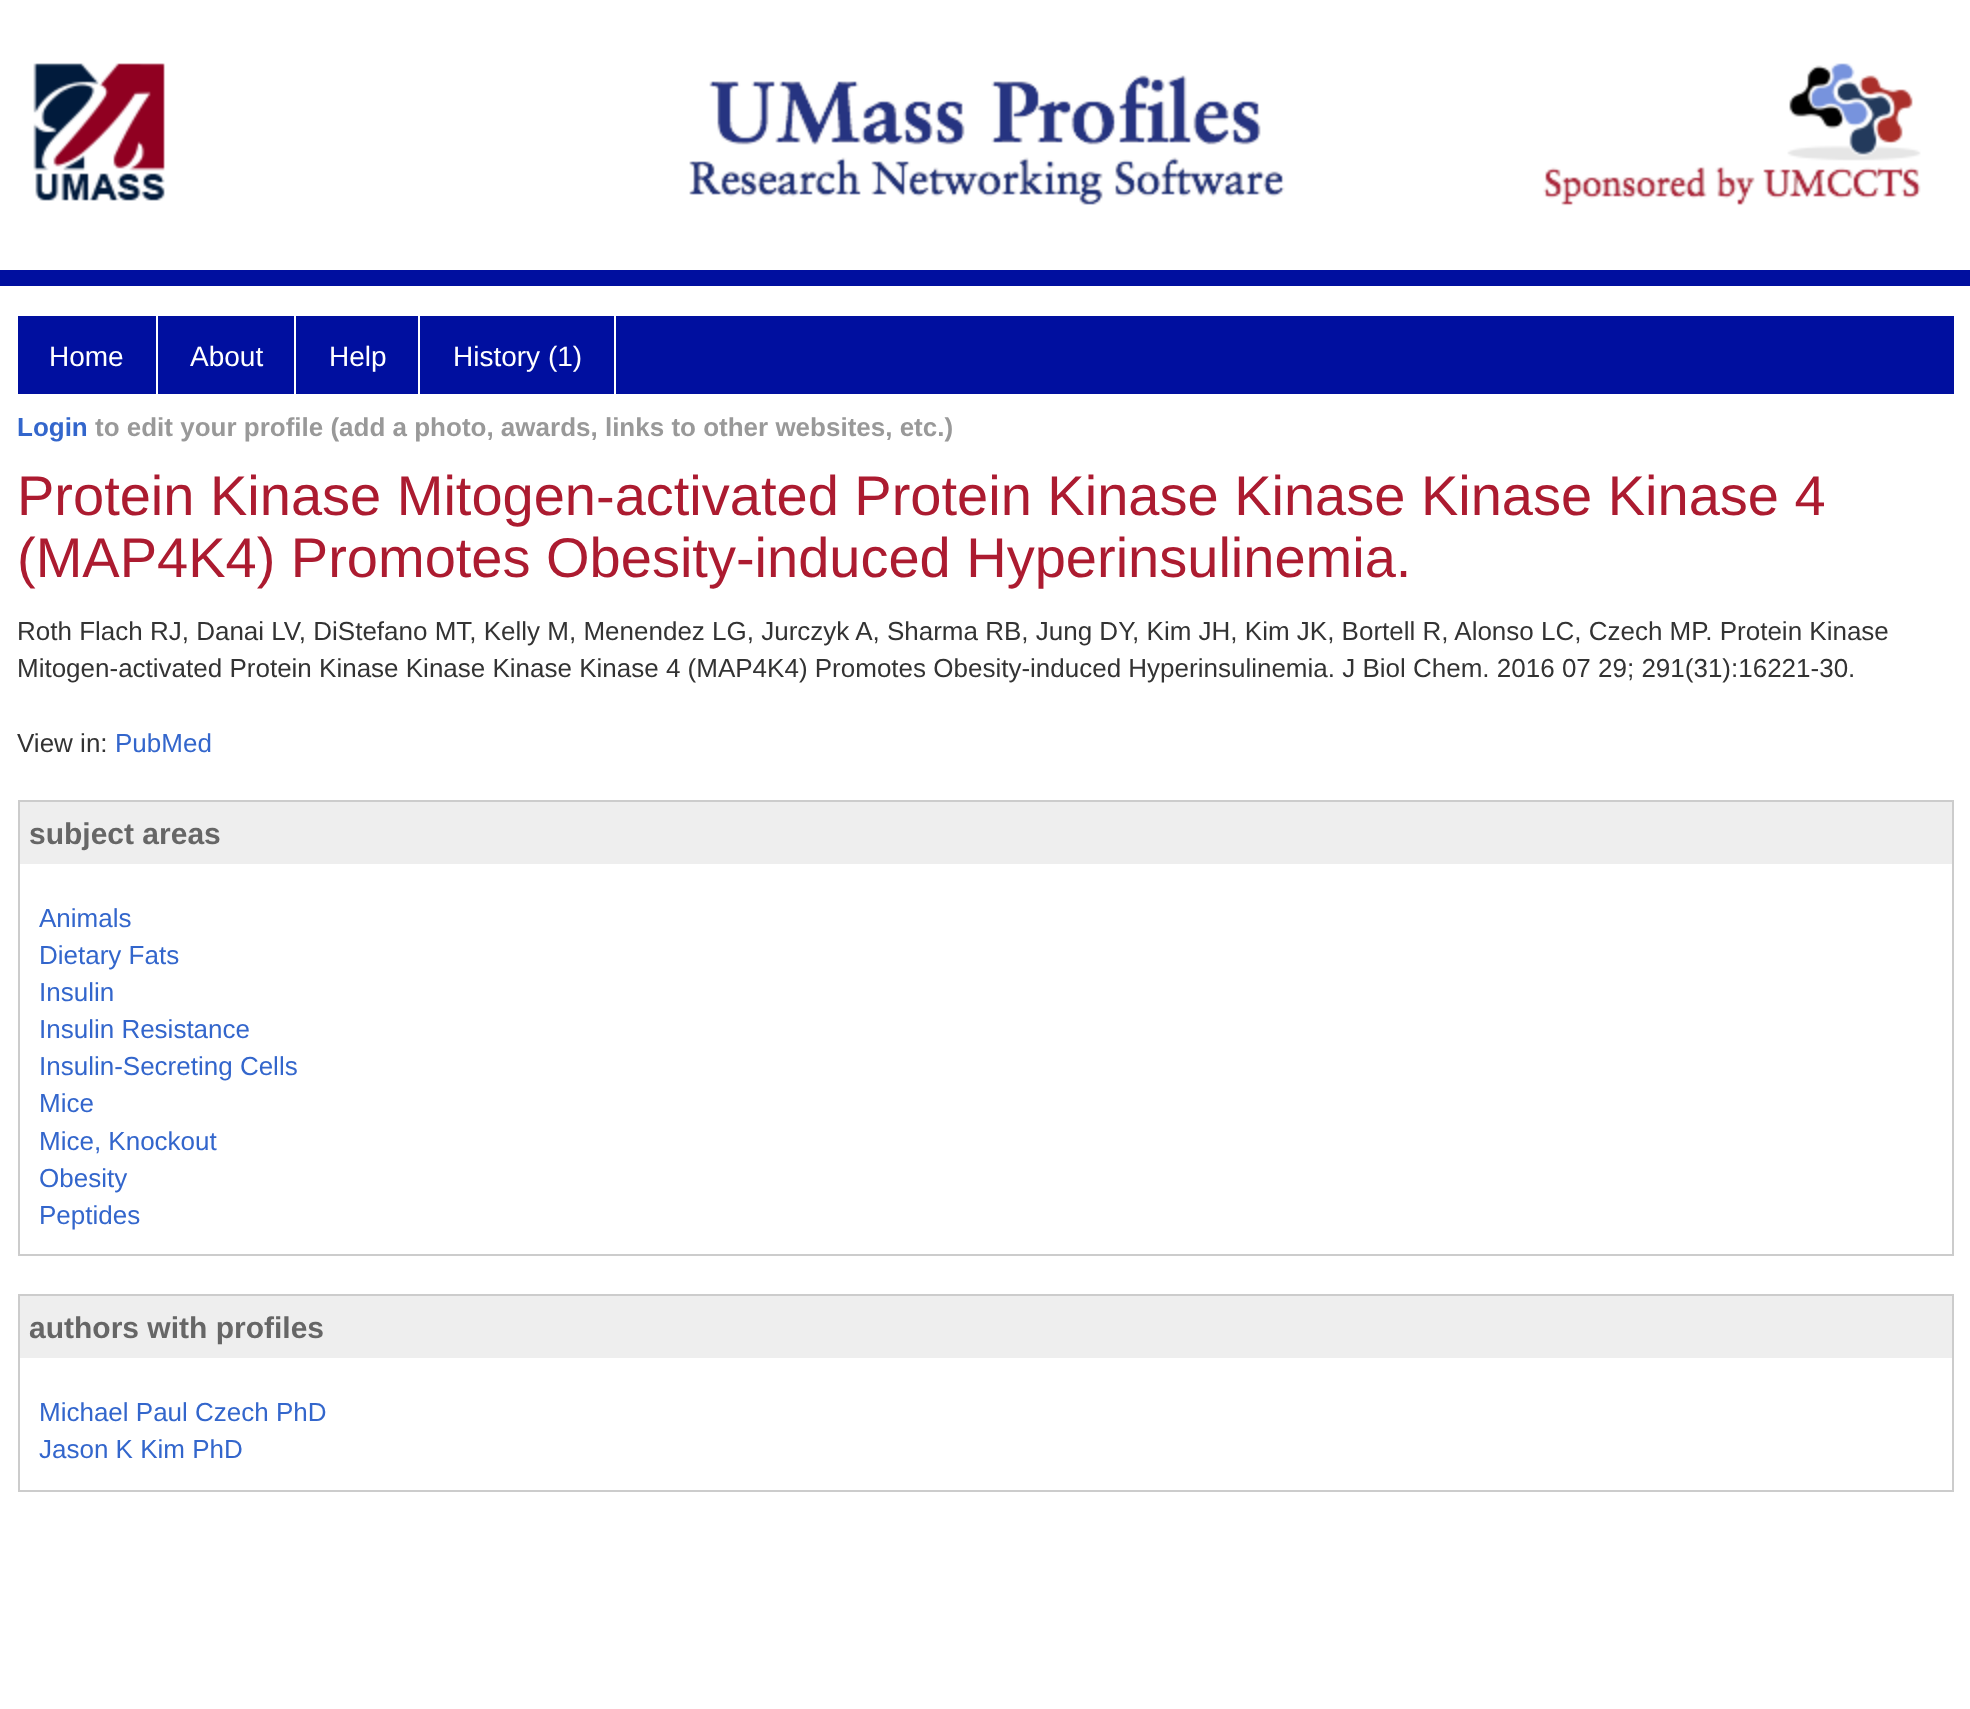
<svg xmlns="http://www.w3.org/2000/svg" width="1970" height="1709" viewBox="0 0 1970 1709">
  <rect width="100%" height="100%" fill="#fff"/>
  <path d="M0 270h1970v16H0z" fill="#000f9f"/>
  <image x="33" y="63" width="1888" height="143" href="img/1.png"/>
  <path d="M18 316h1936v78H18z" fill="#000f9f"/>
  <path d="M156 316h2v78H156z" fill="#fff"/>
  <path d="M294 316h2v78H294z" fill="#fff"/>
  <path d="M418 316h2v78H418z" fill="#fff"/>
  <path d="M614 316h2v78H614z" fill="#fff"/>
  <path d="M19 801h1934v454H19z" fill="none" stroke="#ccc" stroke-width="2"/>
  <path d="M20 802h1932v62H20z" fill="#eee"/>
  <path d="M19 1295h1934v196H19z" fill="none" stroke="#ccc" stroke-width="2"/>
  <path d="M20 1296h1932v62H20z" fill="#eee"/>
  <g font-family="Liberation Sans" font-size="28" fill="#fff">
    <text x="49" y="366">Home</text>
    <text x="190" y="366">About</text>
    <text x="329" y="366">Help</text>
    <text x="453" y="366">History (1)</text>
  </g>
  <text x="17" y="436" font-family="Liberation Sans" font-size="26" font-weight="bold" fill="#36c">Login</text>
  <text x="95" y="436" font-family="Liberation Sans" font-size="26" font-weight="bold" fill="#999">to edit your profile (add a photo, awards, links to other websites, etc.)</text>
  <g font-family="Liberation Sans" font-size="56" fill="#ac1b30">
    <text x="17" y="515">Protein Kinase Mitogen-activated Protein Kinase Kinase Kinase Kinase 4</text>
    <text x="17" y="577">(MAP4K4) Promotes Obesity-induced Hyperinsulinemia.</text>
  </g>
  <g font-family="Liberation Sans" font-size="26" fill="#333">
    <text x="17" y="640">Roth Flach RJ, Danai LV, DiStefano MT, Kelly M, Menendez LG, Jurczyk A, Sharma RB, Jung DY, Kim JH, Kim JK, Bortell R, Alonso LC, Czech MP. Protein Kinase</text>
    <text x="17" y="677">Mitogen-activated Protein Kinase Kinase Kinase Kinase 4 (MAP4K4) Promotes Obesity-induced Hyperinsulinemia. J Biol Chem. 2016 07 29; 291(31):16221-30.</text>
    <text x="17" y="752">View in:</text>
  </g>
  <text x="115" y="752" font-family="Liberation Sans" font-size="26" fill="#36c">PubMed</text>
  <text x="29" y="844" font-family="Liberation Sans" font-size="30" font-weight="bold" fill="#666">subject areas</text>
  <g font-family="Liberation Sans" font-size="26" fill="#36c">
    <text x="39" y="927">Animals</text>
    <text x="39" y="964">Dietary Fats</text>
    <text x="39" y="1001">Insulin</text>
    <text x="39" y="1038">Insulin Resistance</text>
    <text x="39" y="1075">Insulin-Secreting Cells</text>
    <text x="39" y="1112">Mice</text>
    <text x="39" y="1150">Mice, Knockout</text>
    <text x="39" y="1187">Obesity</text>
    <text x="39" y="1224">Peptides</text>
  </g>
  <text x="29" y="1338" font-family="Liberation Sans" font-size="30" font-weight="bold" fill="#666">authors with profiles</text>
  <g font-family="Liberation Sans" font-size="26" fill="#36c">
    <text x="39" y="1421">Michael Paul Czech PhD</text>
    <text x="39" y="1458">Jason K Kim PhD</text>
  </g>
</svg>
